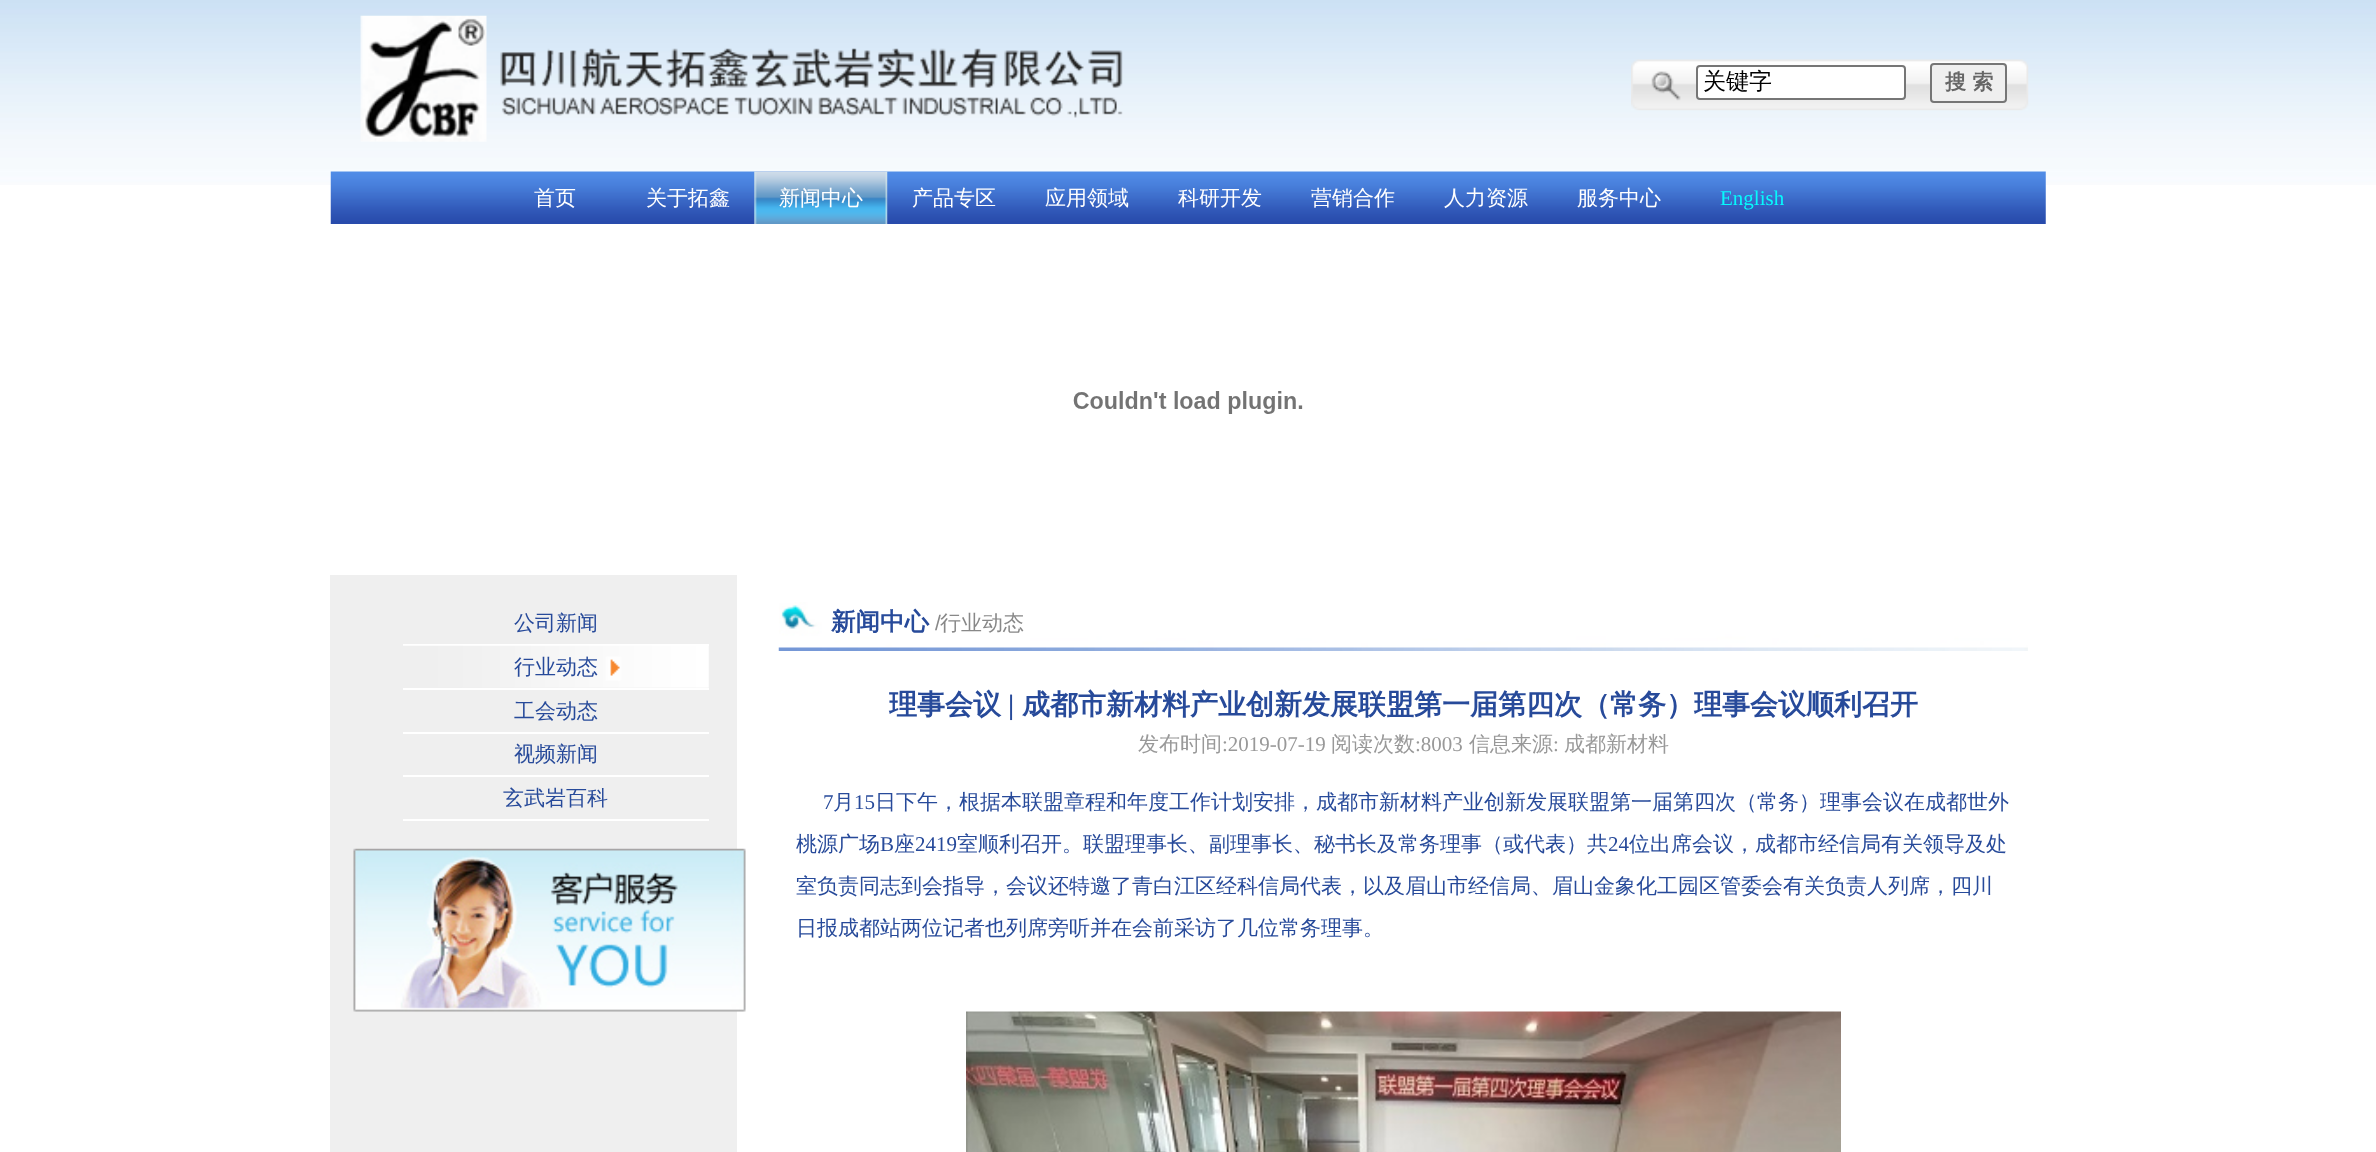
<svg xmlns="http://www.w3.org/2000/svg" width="2376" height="1152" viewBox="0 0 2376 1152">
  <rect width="100%" height="100%" fill="#fff"/>
  <image x="0" y="0" width="2376" height="185" href="img/1.png"/>
  <image x="360" y="15" width="763" height="127" href="img/2.png"/>
  <image x="1631" y="59" width="398" height="52" href="img/3.png"/>
  <rect x="1697" y="66" width="208" height="33" rx="3" fill="#fff" stroke="#767676" stroke-width="2"/>
  <rect x="1931" y="64" width="75" height="38" rx="3" fill="#efefef" stroke="#767676" stroke-width="2"/>
  <image x="330" y="171" width="1716" height="53" href="img/4.png"/>
  <image x="754" y="171" width="134" height="53" href="img/5.png"/>
  <image x="1073" y="391" width="230" height="23" href="img/6.png"/>
  <path d="M330 575h407v577H330z" fill="#efefef"/>
  <path d="M403 644h306v2H403z" fill="#fff"/>
  <image x="403" y="645" width="306" height="43" href="img/7.png"/>
  <path d="M403 688h306v2H403z" fill="#fff"/>
  <path d="M403 732h306v2H403z" fill="#fff"/>
  <path d="M403 775h306v2H403z" fill="#fff"/>
  <path d="M403 819h306v2H403z" fill="#fff"/>
  <image x="353" y="848" width="393" height="164" href="img/8.png"/>
  <image x="778" y="602" width="1250" height="49" href="img/9.png"/>
  <image x="966" y="1011" width="875" height="141" href="img/10.png"/>
  <text x="1703" y="89" font-family="WenQuanYi Zen Hei" font-size="23" font-weight="500" fill="#000">关键字</text>
  <text x="1945" y="89" font-family="WenQuanYi Zen Hei" font-size="21" font-weight="bold" fill="#666">搜 索</text>
  <g font-family="WenQuanYi Zen Hei" font-size="21" font-weight="500" fill="#fff">
    <text x="534" y="205">首页</text>
    <text x="646" y="205">关于拓鑫</text>
    <text x="779" y="205">新闻中心</text>
    <text x="912" y="205">产品专区</text>
    <text x="1045" y="205">应用领域</text>
    <text x="1178" y="205">科研开发</text>
    <text x="1311" y="205">营销合作</text>
    <text x="1444" y="205">人力资源</text>
    <text x="1577" y="205">服务中心</text>
  </g>
  <text x="1720" y="205" font-family="Liberation Serif" font-size="21" fill="#06fafd">English</text>
  <g font-family="WenQuanYi Zen Hei" font-size="21" font-weight="500" fill="#274a9a">
    <text x="514" y="630">公司新闻</text>
    <text x="514" y="674">行业动态</text>
    <text x="514" y="718">工会动态</text>
    <text x="514" y="761">视频新闻</text>
    <text x="503" y="805">玄武岩百科</text>
  </g>
  <text x="831" y="630" font-family="WenQuanYi Zen Hei" font-size="24.5" font-weight="bold" fill="#274a9a">新闻中心</text>
  <text x="935" y="630" font-family="Liberation Sans" font-size="21" fill="#888">/</text>
  <text x="940" y="630" font-family="WenQuanYi Zen Hei" font-size="21" font-weight="500" fill="#888">行业动态</text>
  <text x="889" y="714" font-family="WenQuanYi Zen Hei" font-size="28" font-weight="bold" fill="#274a9a">理事会议</text>
  <text x="1008" y="714" font-family="Liberation Serif" font-size="28" font-weight="bold" fill="#274a9a">|</text>
  <text x="1022" y="714" font-family="WenQuanYi Zen Hei" font-size="28" font-weight="bold" fill="#274a9a">成都市新材料产业创新发展联盟第一届第四次（常务）理事会议顺利召开</text>
  <text x="1138" y="751" font-family="WenQuanYi Zen Hei" font-size="21" font-weight="500" fill="#999">发布时间</text>
  <text x="1222" y="751" font-family="Liberation Serif" font-size="21" fill="#999">:2019-07-19</text>
  <text x="1331" y="751" font-family="WenQuanYi Zen Hei" font-size="21" font-weight="500" fill="#999">阅读次数</text>
  <text x="1415" y="751" font-family="Liberation Serif" font-size="21" fill="#999">:8003</text>
  <text x="1469" y="751" font-family="WenQuanYi Zen Hei" font-size="21" font-weight="500" fill="#999">信息来源</text>
  <text x="1553" y="751" font-family="Liberation Serif" font-size="21" fill="#999">:</text>
  <text x="1564" y="751" font-family="WenQuanYi Zen Hei" font-size="21" font-weight="500" fill="#999">成都新材料</text>
  <text x="823" y="809" font-family="Liberation Serif" font-size="21" fill="#274a9a">7</text>
  <text x="833" y="809" font-family="WenQuanYi Zen Hei" font-size="21" font-weight="500" fill="#274a9a">月</text>
  <text x="854" y="809" font-family="Liberation Serif" font-size="21" fill="#274a9a">15</text>
  <g font-family="WenQuanYi Zen Hei" font-size="21" font-weight="500" fill="#274a9a">
    <text x="875" y="809">日下午，根据本联盟章程和年度工作计划安排，成都市新材料产业创新发展联盟第一届第四次（常务）理事会议在成都世外</text>
    <text x="796" y="851">桃源广场</text>
  </g>
  <text x="880" y="851" font-family="Liberation Serif" font-size="21" fill="#274a9a">B</text>
  <text x="894" y="851" font-family="WenQuanYi Zen Hei" font-size="21" font-weight="500" fill="#274a9a">座</text>
  <text x="915" y="851" font-family="Liberation Serif" font-size="21" fill="#274a9a">2419</text>
  <text x="957" y="851" font-family="WenQuanYi Zen Hei" font-size="21" font-weight="500" fill="#274a9a">室顺利召开。联盟理事长、副理事长、秘书长及常务理事（或代表）共</text>
  <text x="1608" y="851" font-family="Liberation Serif" font-size="21" fill="#274a9a">24</text>
  <g font-family="WenQuanYi Zen Hei" font-size="21" font-weight="500" fill="#274a9a">
    <text x="1629" y="851">位出席会议，成都市经信局有关领导及处</text>
    <text x="796" y="893">室负责同志到会指导，会议还特邀了青白江区经科信局代表，以及眉山市经信局、眉山金象化工园区管委会有关负责人列席，四川</text>
    <text x="796" y="935">日报成都站两位记者也列席旁听并在会前采访了几位常务理事。</text>
  </g>
</svg>
